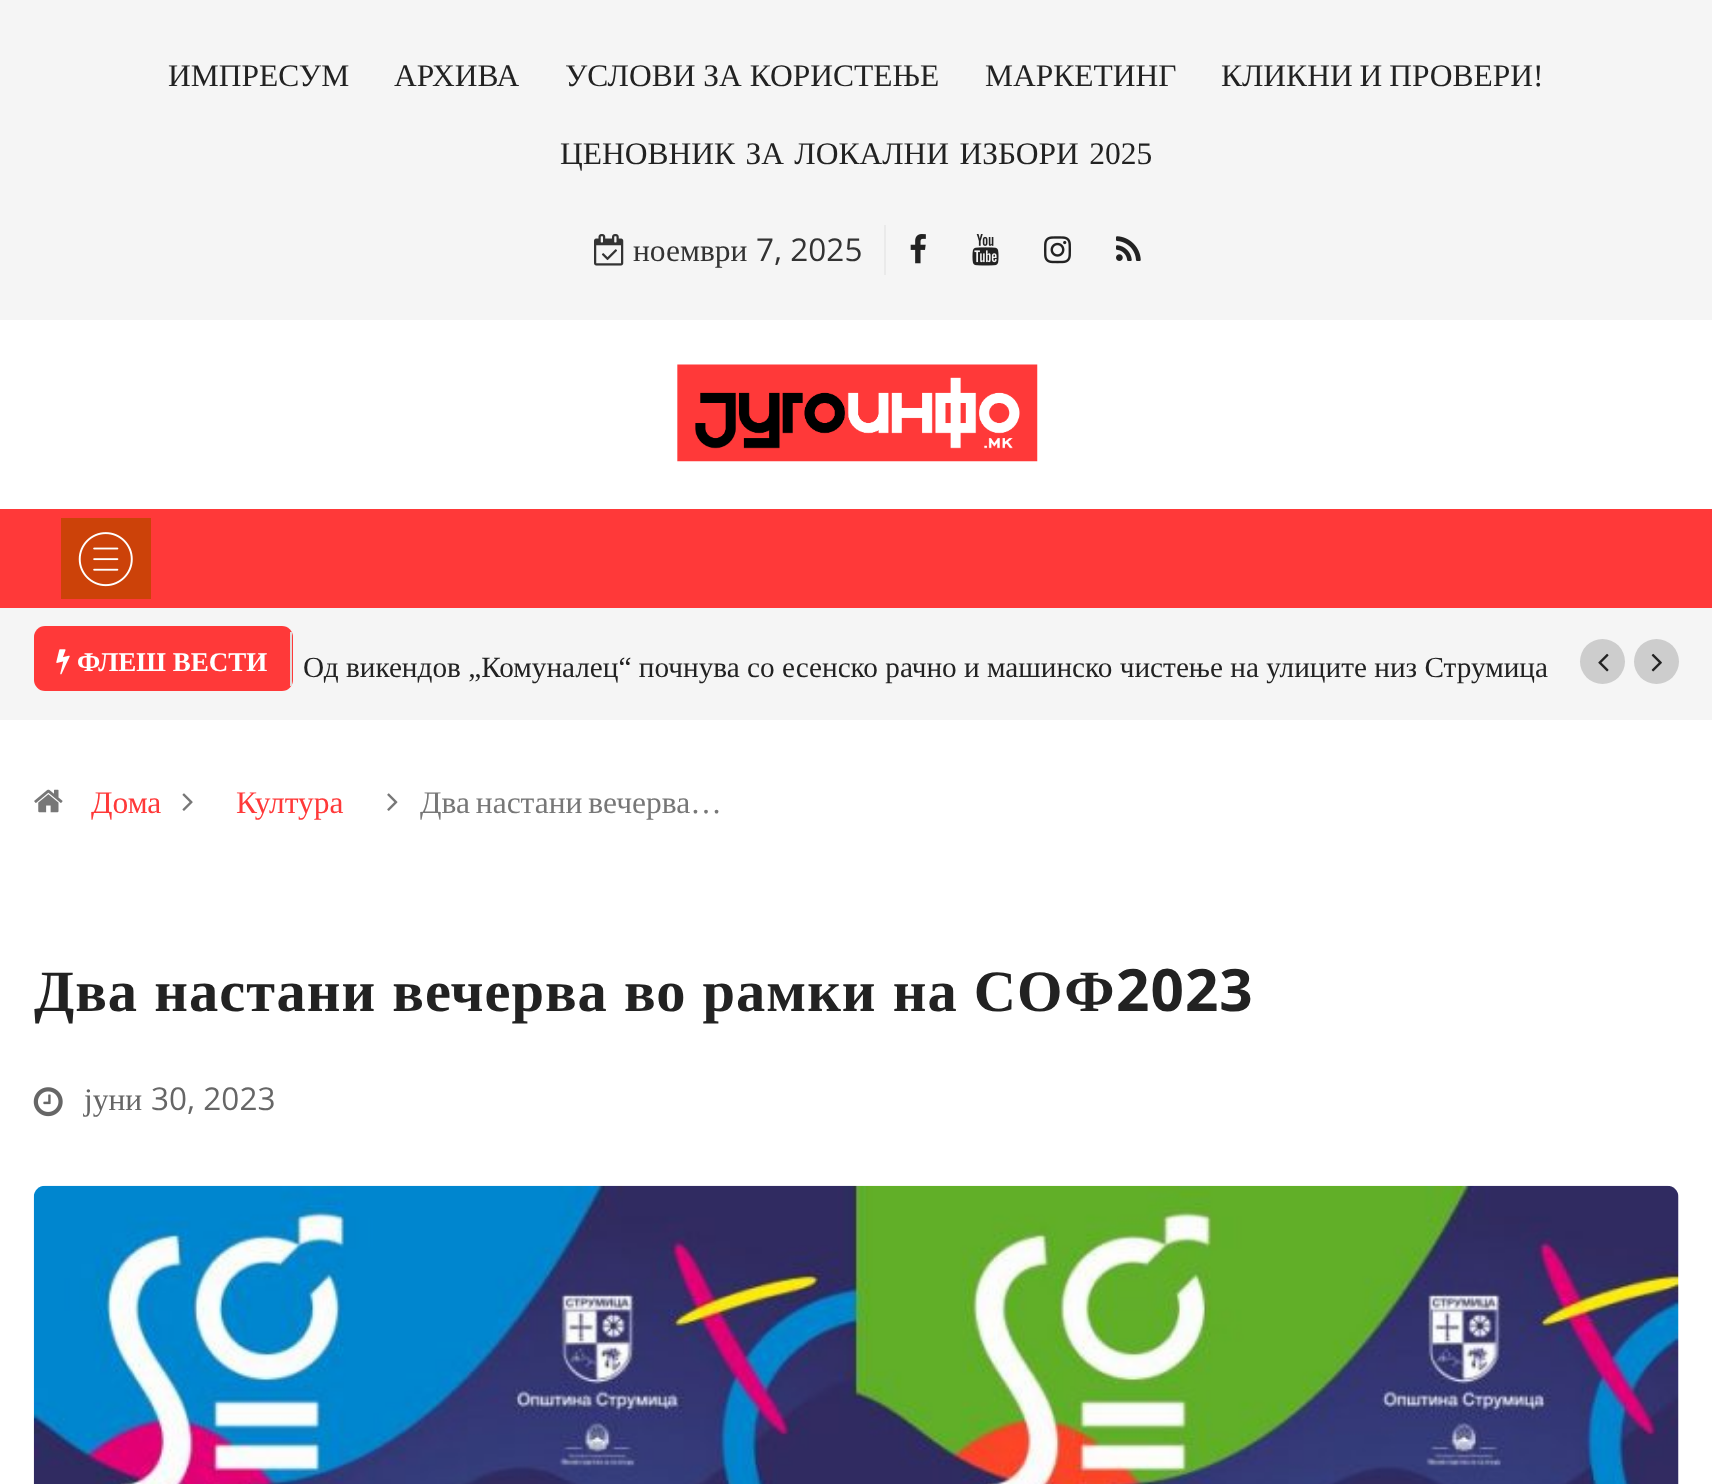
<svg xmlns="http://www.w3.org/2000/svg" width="1712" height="1484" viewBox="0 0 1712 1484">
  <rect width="100%" height="100%" fill="#fff"/>
  <path d="M0 0h1712v320H0z" fill="#f5f5f5"/>
  <path d="M884 225h2v50H884z" fill="#eaeaea"/>
  <image x="594" y="234" width="30" height="32" href="img/1.png"/>
  <image x="910" y="234" width="16" height="30" href="img/2.png"/>
  <image x="972" y="234" width="27" height="32" href="img/3.png"/>
  <image x="1044" y="236" width="27" height="28" href="img/4.png"/>
  <image x="1116" y="236" width="25" height="25" href="img/5.png"/>
  <image x="677" y="364" width="361" height="98" href="img/6.png"/>
  <path d="M0 509h1712v99H0z" fill="#ff3939"/>
  <path d="M61 518h90v81H61z" fill="#cc4209"/>
  <image x="78" y="532" width="55" height="55" href="img/7.png"/>
  <path d="M0 608h1712v112H0z" fill="#f5f5f5"/>
  <rect x="34" y="626" width="259" height="65" rx="11" fill="#ff3939"/>
  <path d="M290 632h2v54H290z" fill="#dedbdb"/>
  <image x="56" y="649" width="14" height="26" href="img/8.png"/>
  <circle cx="1602.5" cy="661.5" r="22.5" fill="#cdcdcd"/>
  <image x="1598" y="653" width="11" height="19" href="img/9.png"/>
  <circle cx="1656.5" cy="661.5" r="22.5" fill="#cdcdcd"/>
  <image x="1651" y="653" width="11" height="19" href="img/10.png"/>
  <image x="34" y="789" width="29" height="24" href="img/11.png"/>
  <image x="182" y="793" width="11" height="18" href="img/12.png"/>
  <image x="387" y="793" width="11" height="18" href="img/13.png"/>
  <image x="33" y="1087" width="30" height="30" href="img/14.png"/>
  <image x="33" y="1185" width="1646" height="299" href="img/15.png"/>
  <g font-family="Liberation Serif" font-size="31.5" fill="#222">
    <text x="168" y="86">ИМПРЕСУМ</text>
    <text x="394" y="86">АРХИВА</text>
    <text x="565" y="86">УСЛОВИ ЗА КОРИСТЕЊЕ</text>
    <text x="985" y="86">МАРКЕТИНГ</text>
    <text x="1221" y="86" word-spacing="-1">КЛИКНИ И ПРОВЕРИ!</text>
    <text x="560" y="164" word-spacing="2.5">ЦЕНОВНИК ЗА ЛОКАЛНИ ИЗБОРИ 2025</text>
  </g>
  <text x="633" y="261" font-family="Liberation Serif" font-size="31.5" fill="#333">ноември</text>
  <text x="756" y="261" font-family="Open Sans" font-size="31.5" fill="#333">7, 2025</text>
  <text x="77" y="671" font-family="Liberation Serif" font-size="27" font-weight="bold" fill="#fff">ФЛЕШ ВЕСТИ</text>
  <text x="303" y="677" font-family="Liberation Serif" font-size="29.25" fill="#222">Од викендов „Комуналец“ почнува со есенско рачно и машинско чистење на улиците низ Струмица</text>
  <g font-family="Liberation Serif" font-size="31.5" fill="#ff3939">
    <text x="91" y="813">Дома</text>
    <text x="236" y="813">Култура</text>
  </g>
  <text x="420" y="813" word-spacing="-2" font-family="Liberation Serif" font-size="31.5" fill="#777">Два настани вечерва…</text>
  <text x="34" y="1011" word-spacing="0.5" font-family="Liberation Serif" font-size="58.5" font-weight="bold" letter-spacing="1" fill="#222">Два настани вечерва во рамки на СОФ</text>
  <text x="1116" y="1011" font-family="Open Sans" font-size="58.5" font-weight="bold" letter-spacing="1" fill="#222">2023</text>
  <text x="84" y="1110" font-family="Liberation Serif" font-size="31.5" fill="#666">јуни</text>
  <text x="151" y="1110" font-family="Open Sans" font-size="31.5" fill="#666">30, 2023</text>
</svg>
